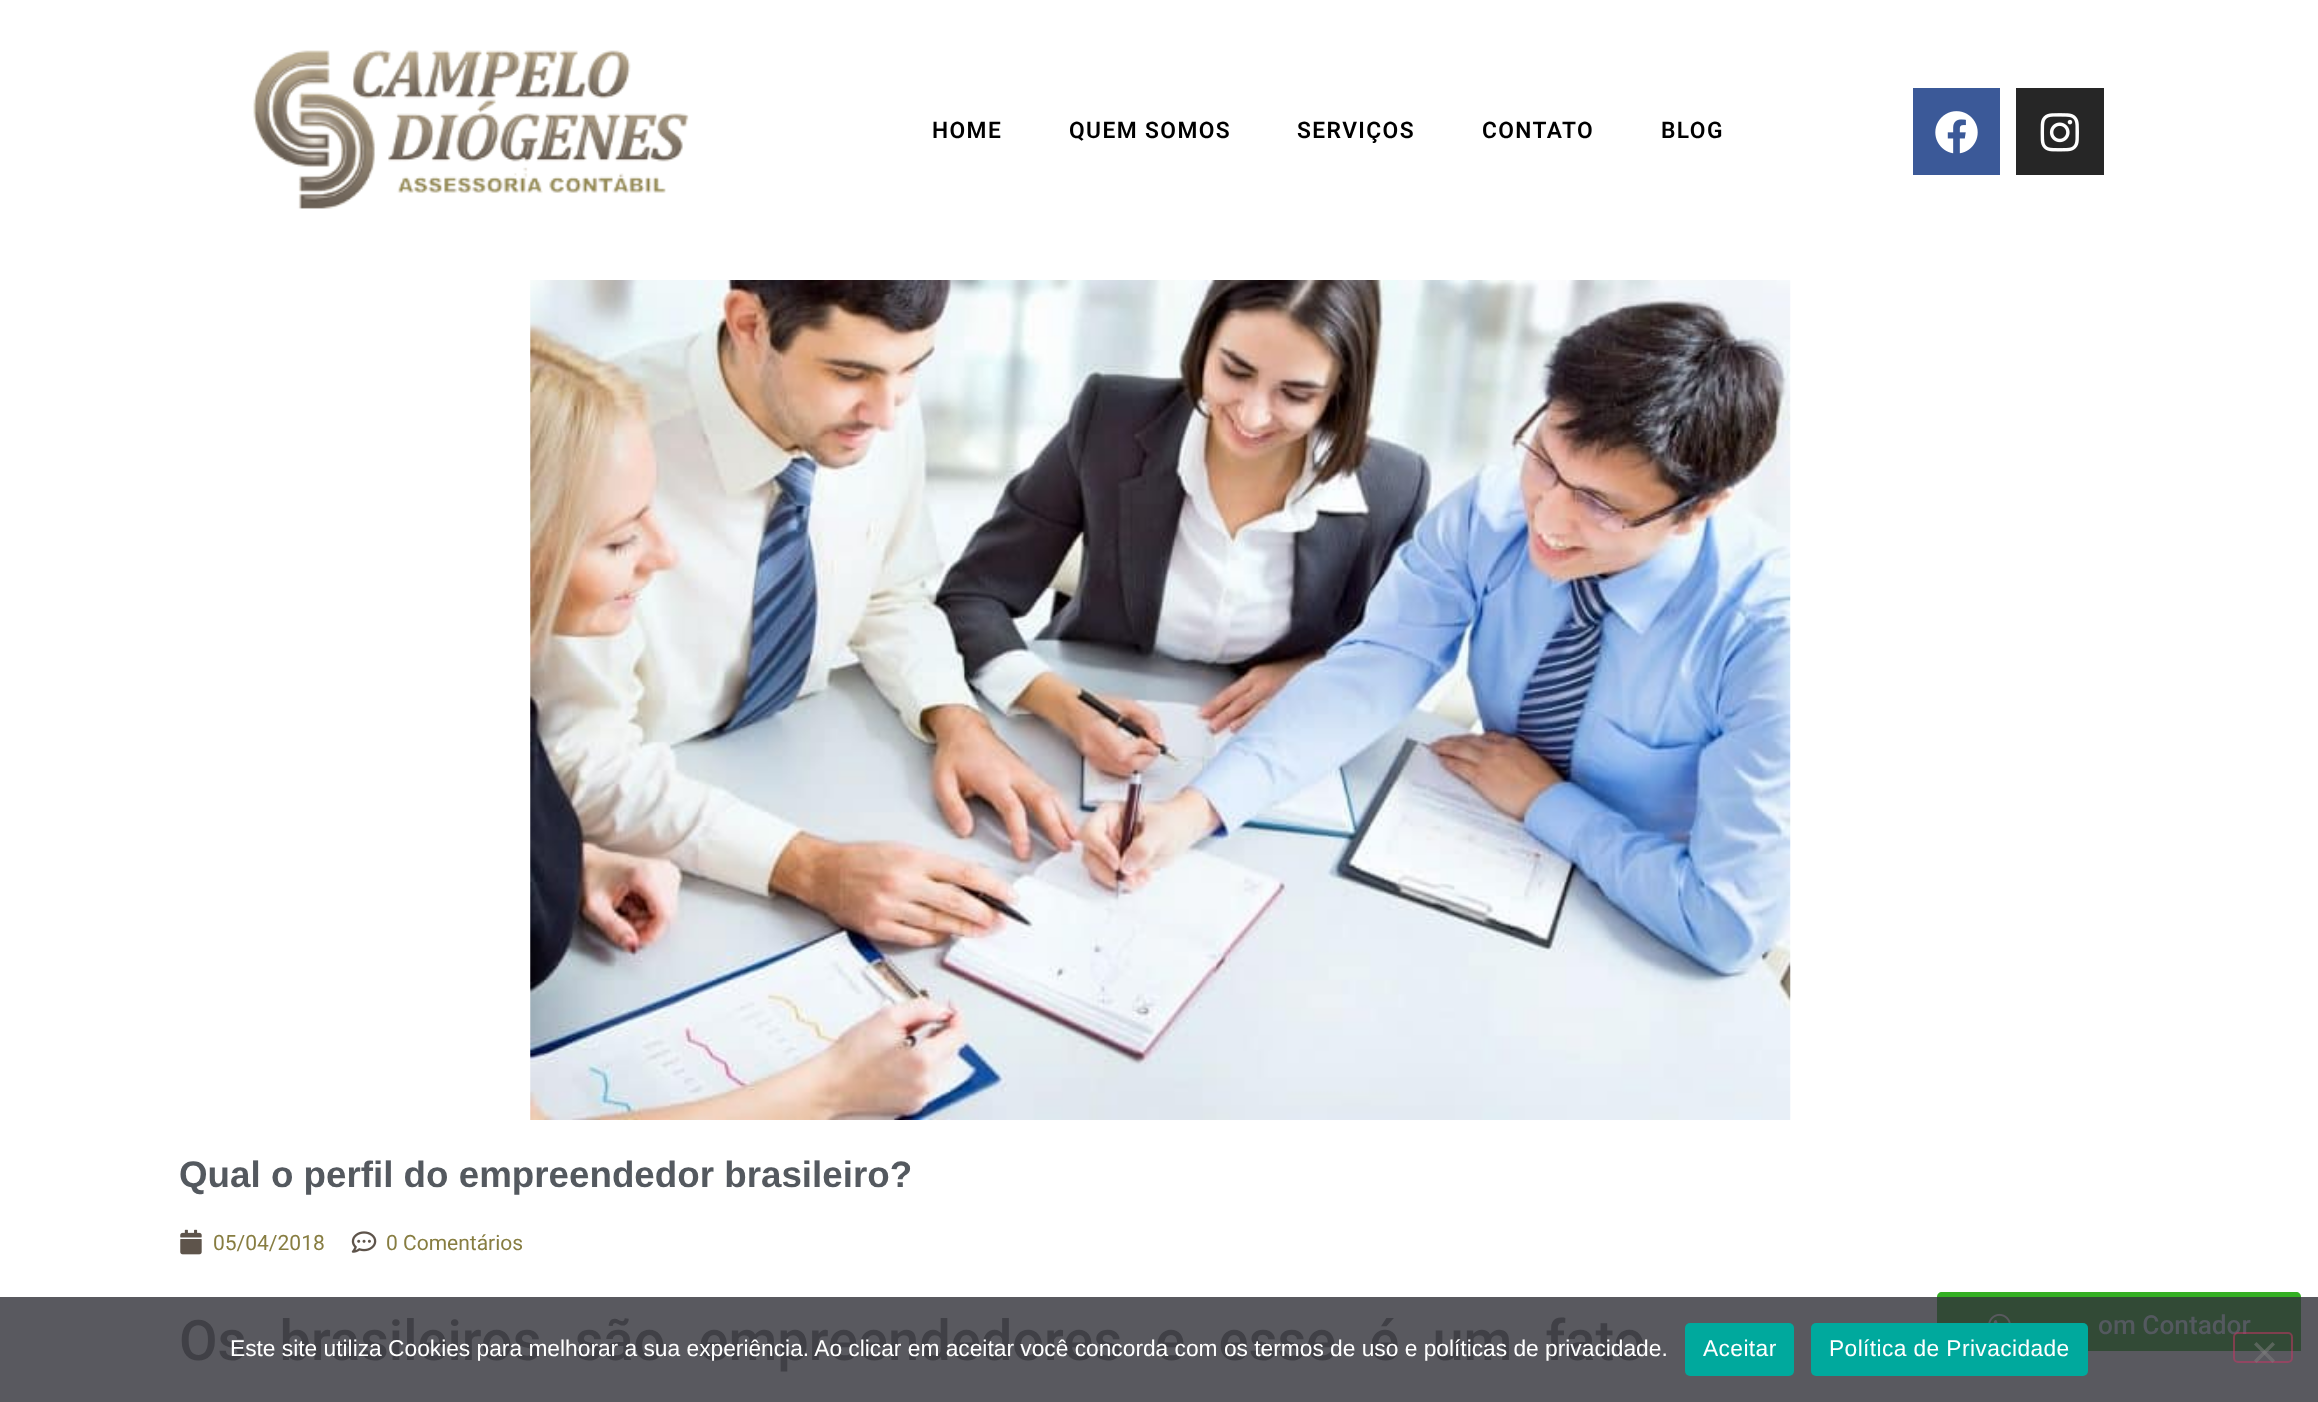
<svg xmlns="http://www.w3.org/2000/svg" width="2318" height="1402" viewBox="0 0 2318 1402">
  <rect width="100%" height="100%" fill="#fff"/>
  <path d="M0 1297h2318v105H0z" fill="#59595f"/>
  <image x="253" y="50" width="436" height="159" href="img/1.png"/>
  <path d="M1913 88h87v87H1913z" fill="#3b5998"/>
  <image x="1935" y="111" width="43" height="43" href="img/2.png"/>
  <path d="M2016 88h88v87H2016z" fill="#262626"/>
  <image x="2040" y="113" width="39" height="39" href="img/3.png"/>
  <image x="530" y="280" width="1261" height="840" href="img/4.png"/>
  <image x="180" y="1229" width="22" height="26" href="img/5.png"/>
  <image x="351" y="1231" width="26" height="22" href="img/6.png"/>
  <path d="M1942 1292H2296C2299 1292 2301 1294 2301 1297V1351H1937V1297C1937 1294 1939 1292 1942 1292Z" fill="#34af23"/>
  <path d="M1937 1297h364v54H1937z" fill="#324a36"/>
  <image x="1988" y="1313" width="23" height="10" href="img/7.png"/>
  <rect x="1685" y="1323" width="109" height="53" rx="5" fill="#00a99d"/>
  <rect x="1811" y="1323" width="277" height="53" rx="5" fill="#00a99d"/>
  <g font-family="Roboto" font-size="22.75" font-weight="600" letter-spacing="1.4" fill="#000">
    <text x="932" y="138">HOME</text>
    <text x="1069" y="138">QUEM SOMOS</text>
    <text x="1297" y="138">SERVIÇOS</text>
    <text x="1482" y="138">CONTATO</text>
    <text x="1661" y="138">BLOG</text>
  </g>
  <text x="179" y="1187" font-family="Liberation Sans" font-size="36.75" font-weight="bold" fill="#54595f">Qual o perfil do empreendedor brasileiro?</text>
  <g font-family="Roboto" font-size="21" fill="#877d41">
    <text x="213" y="1250">05/04/2018</text>
    <text x="386" y="1250">0 Comentários</text>
  </g>
  <text x="179" y="1360" word-spacing="19.25" font-family="Roboto" font-size="56" font-weight="500" fill="#404046">Os brasileiros são empreendedores e esse é um fato</text>
  <text x="2098" y="1334" font-family="Roboto" font-size="26.25" font-weight="500" fill="#54595f">om Contador</text>
  <text x="230" y="1356" font-family="Liberation Sans" font-size="22.75" fill="#fff">Este site utiliza Cookies para melhorar a sua experiência. Ao clicar em aceitar você concorda com os termos de uso e políticas de privacidade.</text>
  <g font-family="Liberation Sans" font-size="22.75" letter-spacing="0.4" fill="#fff">
    <text x="1703" y="1356">Aceitar</text>
    <text x="1829" y="1356">Política de Privacidade</text>
  </g>
  <rect x="2234" y="1333" width="58" height="29" rx="4" fill="none" stroke="#cc336680" stroke-width="2"/>
  <path d="M2272.5 1342L2275 1344.5L2256.5 1363L2254 1360.5Z" fill="#80808080"/>
  <path d="M2254 1344.5L2256.5 1342L2275 1360.5L2272.5 1363Z" fill="#80808080"/>
</svg>
